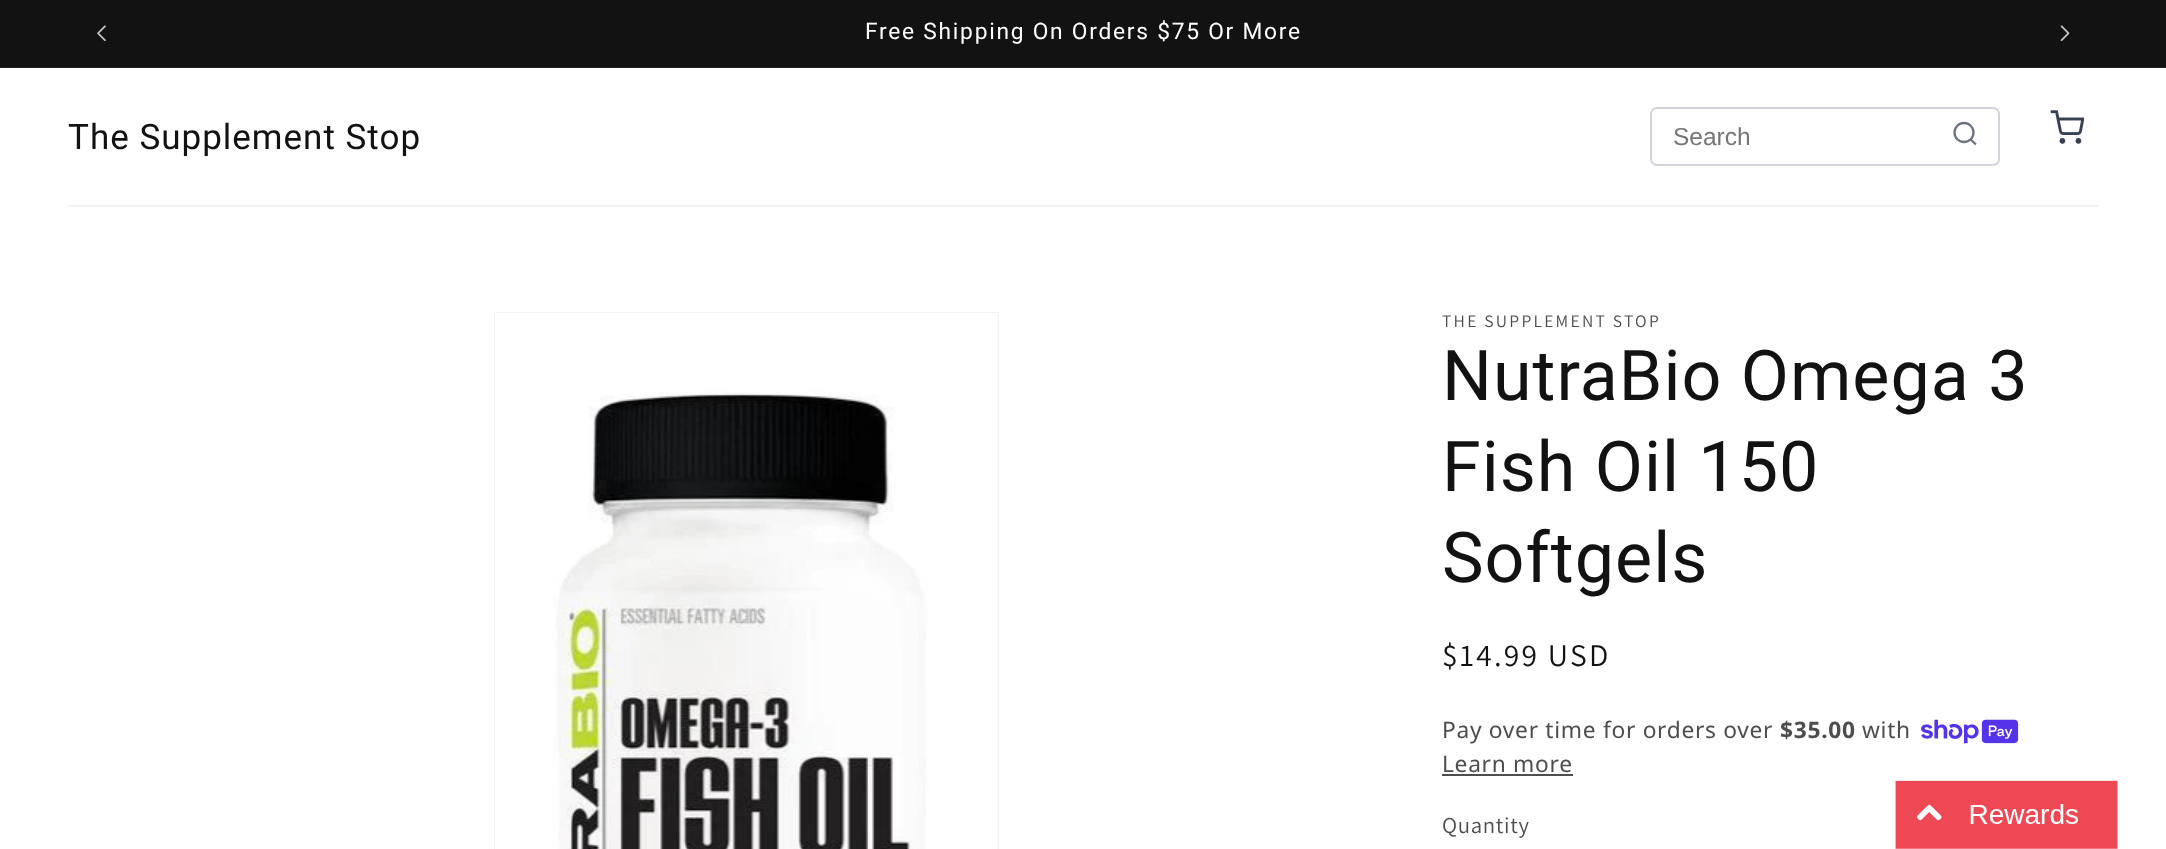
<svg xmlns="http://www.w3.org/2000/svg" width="2166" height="849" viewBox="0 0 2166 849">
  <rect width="100%" height="100%" fill="#fff"/>
  <path d="M0 0h2166v67H0z" fill="#121212"/>
  <path d="M0 67h2166v1H0z" fill="#252525"/>
  <image x="97" y="25" width="9" height="16" href="img/1.png"/>
  <image x="2060" y="25" width="10" height="17" href="img/2.png"/>
  <rect x="1651" y="108" width="348" height="57" rx="6" fill="none" stroke="#d1d5db" stroke-width="2"/>
  <circle cx="1964" cy="132.5" r="9.5" fill="none" stroke="#6b7280" stroke-width="2.3"/>
  <path d="M1976 144.5L1970.5 139.5" fill="none" stroke="#6b7280" stroke-width="2.3"/>
  <image x="2050" y="110" width="34" height="34" href="img/3.png"/>
  <path d="M68 205h2030v2H68z" fill="#f3f4f6"/>
  <path d="M495 313h503v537H495z" fill="none" stroke="#f3f3f3" stroke-width="2"/>
  <image x="495" y="313" width="503" height="536" href="img/4.png"/>
  <image x="1921" y="719" width="98" height="25" href="img/5.png"/>
  <path d="M1442 774h131v2H1442z" fill="#4d4d4d"/>
  <image x="1895" y="780" width="223" height="69" href="img/6.png"/>
  <text x="865" y="39" font-family="Roboto" font-size="22.75" letter-spacing="1.75" fill="#fff">Free Shipping On Orders $75 Or More</text>
  <text x="68" y="149" font-family="Roboto" font-size="35" letter-spacing="1" fill="#121212">The Supplement Stop</text>
  <text x="1673" y="145" font-family="Liberation Sans" font-size="24.5" fill="#757575">Search</text>
  <text x="1442" y="327" font-family="Assistant" font-size="17.5" letter-spacing="2.25" fill="#4d4d4d">THE SUPPLEMENT STOP</text>
  <g font-family="Roboto" font-size="70" letter-spacing="1" fill="#121212">
    <text x="1442" y="400">NutraBio Omega 3</text>
    <text x="1442" y="491">Fish Oil 150</text>
    <text x="1442" y="582">Softgels</text>
  </g>
  <text x="1442" y="666" font-family="Assistant" font-size="31.5" letter-spacing="2.25" fill="#121212">$14.99 USD</text>
  <text x="1442" y="738" font-family="Noto Sans" font-size="22.75" letter-spacing="0.7" fill="#4d4d4d">Pay over time for orders over</text>
  <text x="1780" y="738" font-family="Noto Sans" font-size="22.75" font-weight="bold" letter-spacing="0.7" fill="#4d4d4d">$35.00</text>
  <g font-family="Noto Sans" font-size="22.75" letter-spacing="0.7" fill="#4d4d4d">
    <text x="1862" y="738">with</text>
    <text x="1442" y="772">Learn more</text>
  </g>
  <text x="1442" y="833" font-family="Assistant" font-size="22.75" letter-spacing="0.7" fill="#4d4d4d">Quantity</text>
</svg>
